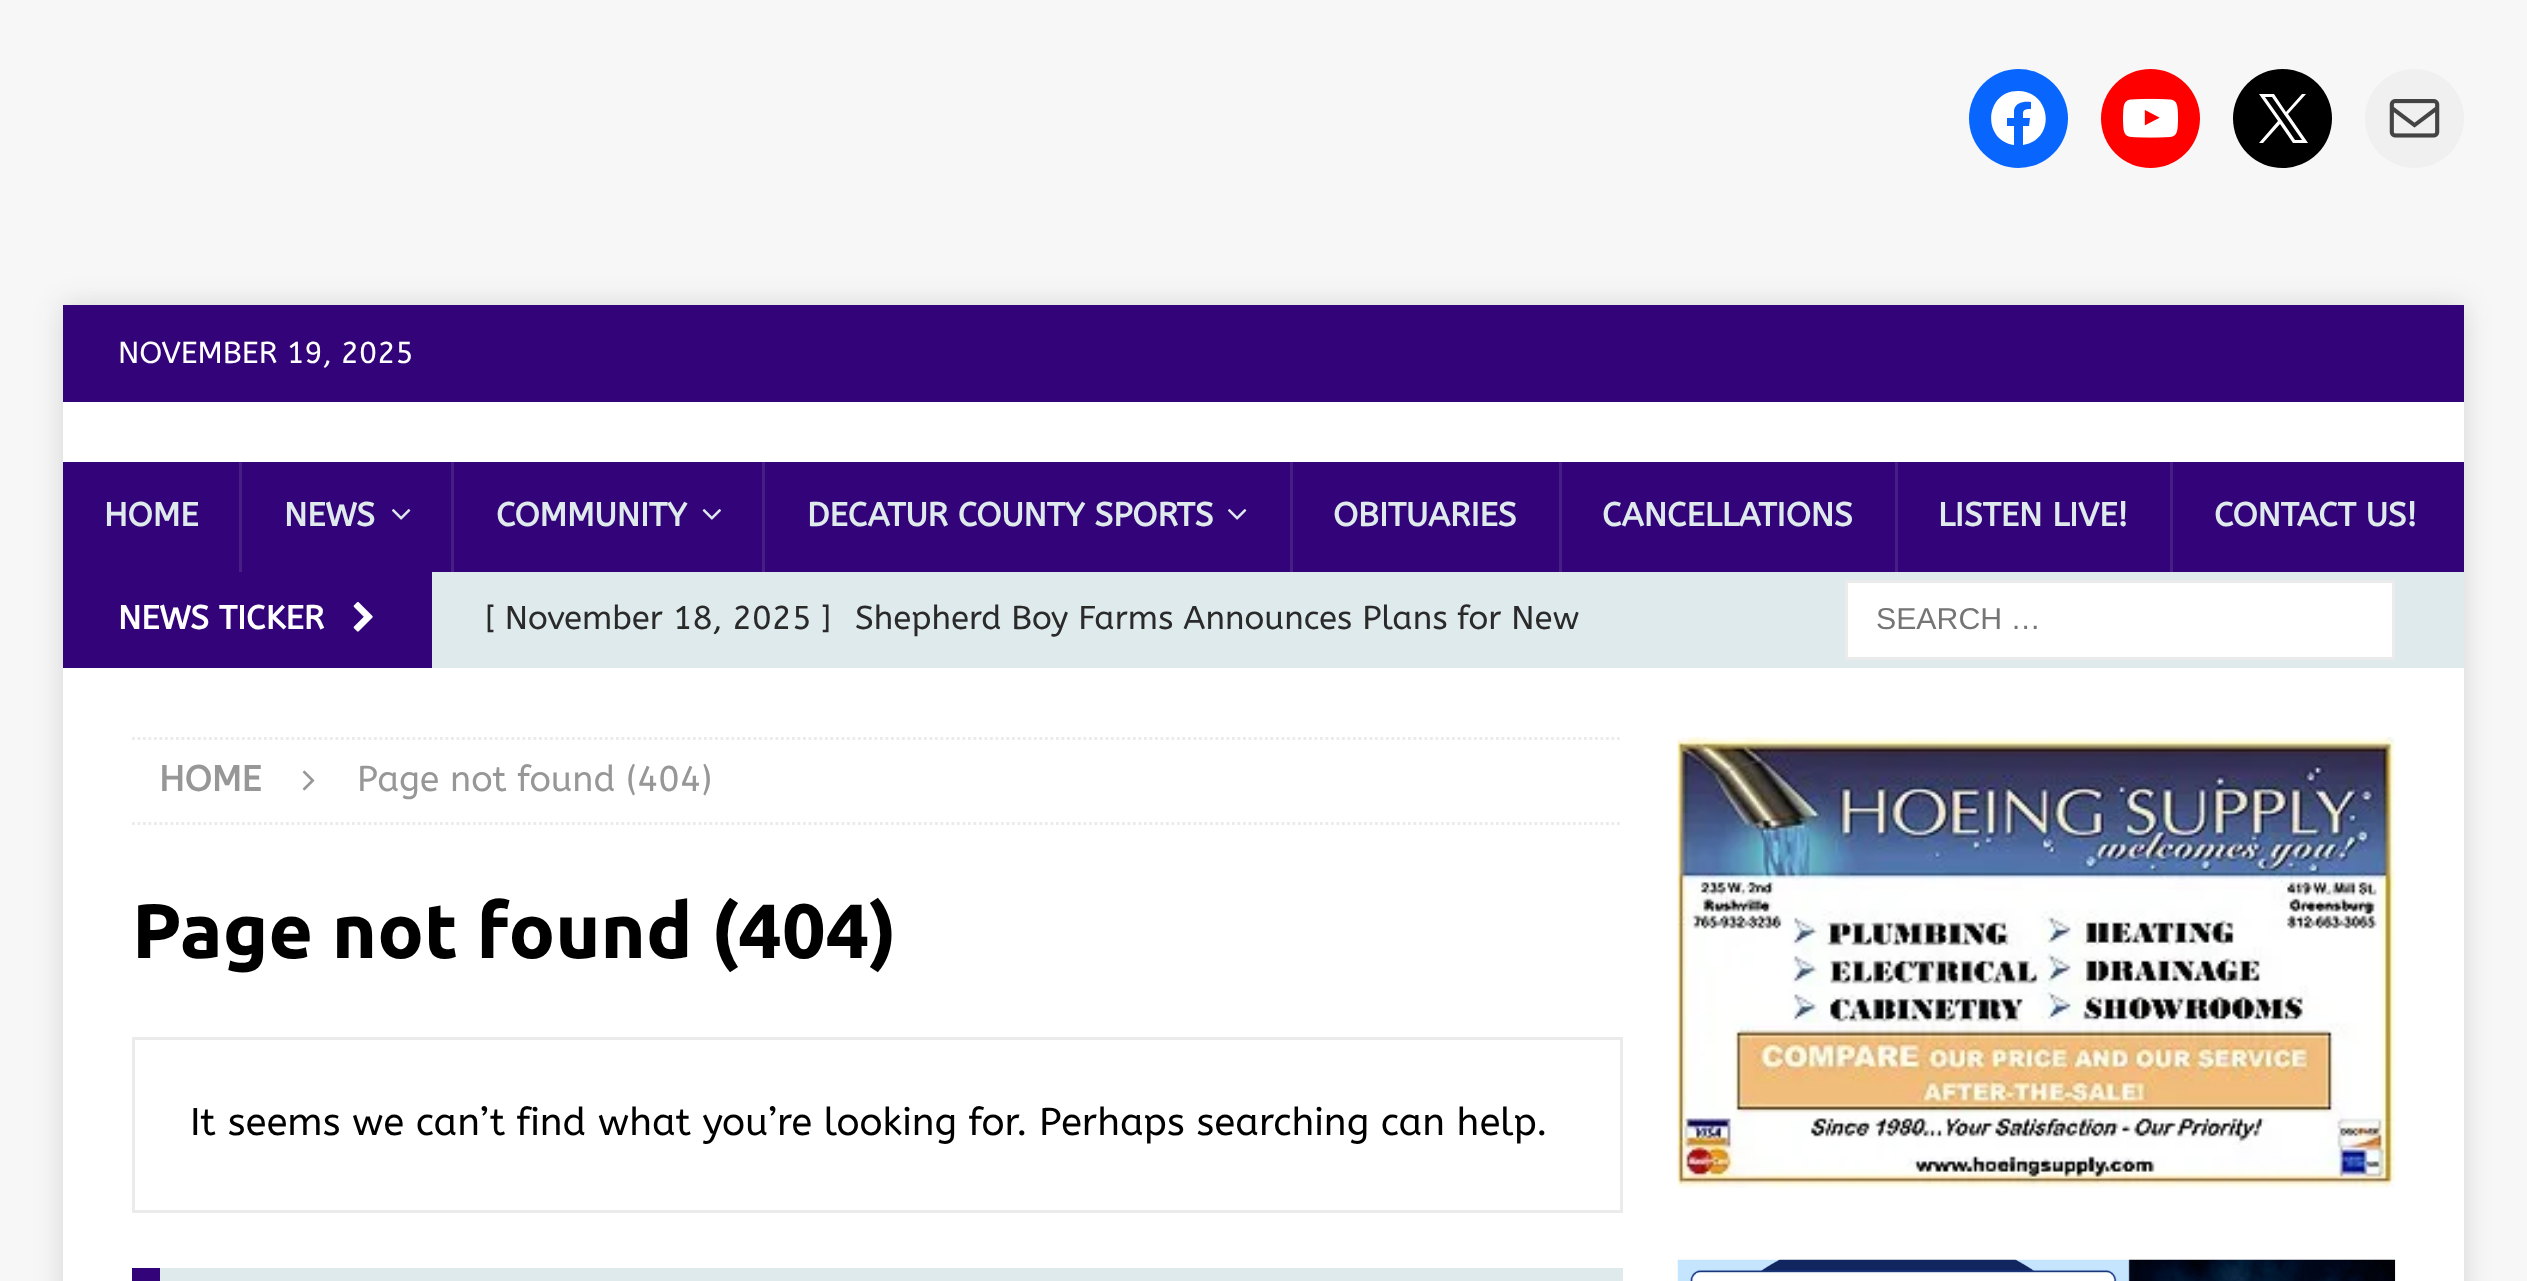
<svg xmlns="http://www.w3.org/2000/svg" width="2527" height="1281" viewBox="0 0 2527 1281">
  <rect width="100%" height="100%" fill="#f7f7f7"/>
  <circle cx="2018.5" cy="118.5" r="49.5" fill="#0866ff"/>
  <path d="M2018 91C1985 91 1981 140 2014 145V126H2007V118H2014V110C2016 102 2024 101 2031 102V109C2022 109 2023 111 2023 118H2030L2029 126H2023V145C2056 140 2052 91 2018 91Z" fill="#fff"/>
  <circle cx="2150.5" cy="118.5" r="49.5" fill="#f00"/>
  <image x="2123" y="98" width="55" height="40" href="img/1.png"/>
  <circle cx="2282.5" cy="118.5" r="49.5" fill="#000"/>
  <path d="M2288 114L2306 94H2302L2286 112L2274 94H2259L2278 121L2259 143H2263L2280 124L2293 143H2308ZM2282 121L2265 97H2272L2302 140H2295Z" fill="#fff"/>
  <circle cx="2414.5" cy="118.5" r="49.5" fill="#f0f0f0"/>
  <image x="2389" y="99" width="51" height="39" href="img/2.png"/>
  <path d="M63 305h2401v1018H63z" fill="#3232322b" filter="blur(14px)"/>
  <path d="M63 305h2401v97H63z" fill="#330479"/>
  <path d="M63 402h2401v60H63z" fill="#fff"/>
  <path d="M63 462h2401v110H63z" fill="#330479"/>
  <path d="M239 462h3v110H239z" fill="#471d86"/>
  <image x="392" y="509" width="19" height="11" href="img/3.png"/>
  <path d="M451 462h3v110H451z" fill="#471d86"/>
  <image x="702" y="509" width="19" height="11" href="img/4.png"/>
  <path d="M762 462h3v110H762z" fill="#471d86"/>
  <image x="1228" y="509" width="19" height="11" href="img/3.png"/>
  <path d="M1290 462h3v110H1290z" fill="#471d86"/>
  <path d="M1559 462h3v110H1559z" fill="#471d86"/>
  <path d="M1895 462h3v110H1895z" fill="#471d86"/>
  <path d="M2170 462h3v110H2170z" fill="#471d86"/>
  <path d="M432 572h2032v96H432z" fill="#dfeaec"/>
  <path d="M63 572h369v96H63z" fill="#330479"/>
  <image x="353" y="602" width="20" height="30" href="img/5.png"/>
  <path d="M1846.5 581.5h547v77H1846.5z" fill="#fff" stroke="#ebebeb" stroke-width="3"/>
  <path d="M63 668h2401v613H63z" fill="#fff"/>
  <path d="M132 738.5H1622.5" fill="none" stroke="#ebebeb" stroke-width="2.8" stroke-dasharray="2.75 2.75"/>
  <path d="M132 823.5H1622.5" fill="none" stroke="#ebebeb" stroke-width="2.8" stroke-dasharray="2.75 2.75"/>
  <image x="302" y="770" width="13" height="21" href="img/6.png"/>
  <path d="M133.5 1038.5h1488v173H133.5z" fill="none" stroke="#ebebeb" stroke-width="3"/>
  <path d="M160 1268h1463v13H160z" fill="#dfeaec"/>
  <path d="M132 1268h28v13H132z" fill="#330479"/>
  <image x="1677" y="737" width="718" height="451" href="img/7.png"/>
  <image x="1677" y="1259" width="719" height="22" href="img/8.png"/>
  <text x="118" y="363" font-family="ABeeZee" font-size="30.25" fill="#fff">NOVEMBER 19, 2025</text>
  <g font-family="ABeeZee" font-size="33" font-weight="bold" fill="#dfeaec">
    <text x="104" y="526">HOME</text>
    <text x="284" y="526">NEWS</text>
    <text x="496" y="526">COMMUNITY</text>
    <text x="807" y="526">DECATUR COUNTY SPORTS</text>
    <text x="1333" y="526">OBITUARIES</text>
    <text x="1602" y="526">CANCELLATIONS</text>
    <text x="1938" y="526">LISTEN LIVE!</text>
    <text x="2214" y="526">CONTACT US!</text>
  </g>
  <text x="118" y="629" font-family="ABeeZee" font-size="33" font-weight="bold" fill="#fff">NEWS TICKER</text>
  <g font-family="ABeeZee" font-size="33" fill="#2a2a2a">
    <text x="485" y="629">[ November 18, 2025 ]</text>
    <text x="855" y="629">Shepherd Boy Farms Announces Plans for New</text>
  </g>
  <text x="1876" y="629" font-family="Liberation Sans" font-size="30.25" fill="#757575">SEARCH …</text>
  <text x="159" y="791" font-family="ABeeZee" font-size="35.75" font-weight="bold" fill="#979797">HOME</text>
  <text x="357" y="791" font-family="ABeeZee" font-size="35.75" fill="#979797">Page not found (404)</text>
  <text x="132" y="958" font-family="Ubuntu" font-size="77" font-weight="bold" fill="#000">Page not found (404)</text>
  <text x="190" y="1135" font-family="ABeeZee" font-size="38.5" fill="#000">It seems we can’t find what you’re looking for. Perhaps searching can help.</text>
</svg>
